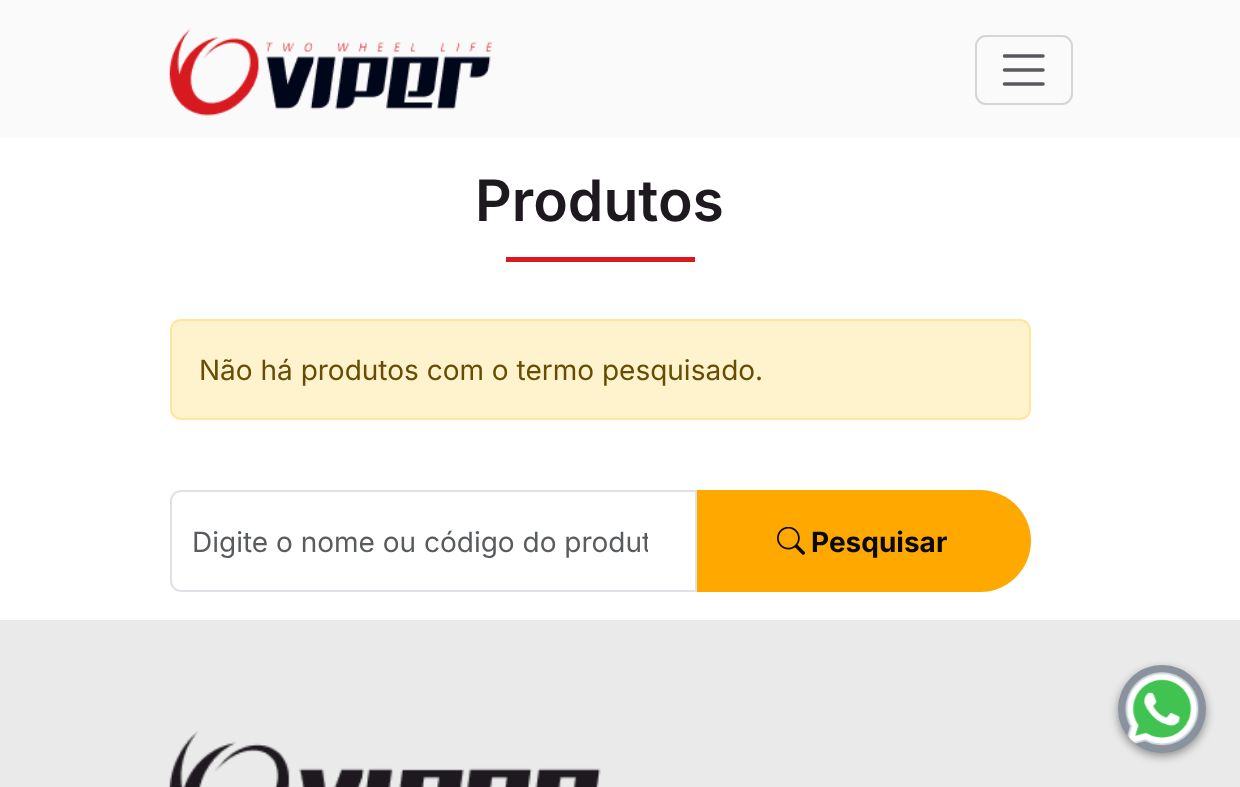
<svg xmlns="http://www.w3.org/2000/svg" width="1240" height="787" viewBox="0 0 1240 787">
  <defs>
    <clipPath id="clip1"><path d="M193 523h455v35H193z"/></clipPath>
  </defs>
  <rect width="100%" height="100%" fill="#fff"/>
  <path d="M0 0h1240v138H0z" fill="#fafafa"/>
  <image x="169" y="28" width="323" height="88" href="img/1.png"/>
  <rect x="976" y="36" width="96" height="68" rx="10" fill="none" stroke="#d5d5d5" stroke-width="2"/>
  <path d="M1004.5 56H1043M1004.5 70H1043M1004.5 84H1043" fill="none" stroke="#575a5d" stroke-width="3.5" stroke-linecap="round"/>
  <path d="M506 257h189v5H506z" fill="#d71920"/>
  <rect x="171" y="320" width="859" height="99" rx="10" fill="#fff3cd" stroke="#ffe69c" stroke-width="2"/>
  <path d="M695 490H980C1008 490 1031 513 1031 541C1031 569 1008 592 980 592H695Z" fill="#ffa800"/>
  <path d="M181 491H696V591H181C175.5 591 171 586.5 171 581V501C171 495.5 175.5 491 181 491Z" fill="none" stroke="#dee2e6" stroke-width="2"/>
  <image x="777" y="527" width="28" height="28" href="img/2.png"/>
  <path d="M0 620h1240v167H0z" fill="#eaeaea"/>
  <image x="169" y="731" width="432" height="56" href="img/3.png"/>
  <rect x="1118" y="669" width="88" height="87" rx="43.5" fill="#00000066" filter="blur(5px)"/>
  <circle cx="1162" cy="709" r="44" fill="#8a929e"/>
  <image x="1125" y="672" width="74" height="74" href="img/4.png"/>
  <text x="475" y="221" font-family="Inter" font-size="57" font-weight="600" fill="#1d191f">Produtos</text>
  <text x="199" y="380" font-family="Inter" font-size="28" fill="#664d03">Não há produtos com o termo pesquisado.</text>
  <g clip-path="url(#clip1)">
    <text x="192" y="552" font-family="Inter" font-size="28" fill="#595c5f">Digite o nome ou código do produt</text>
  </g>
  <text x="811" y="552" font-family="Inter" font-size="28" font-weight="bold" fill="#090909">Pesquisar</text>
</svg>
